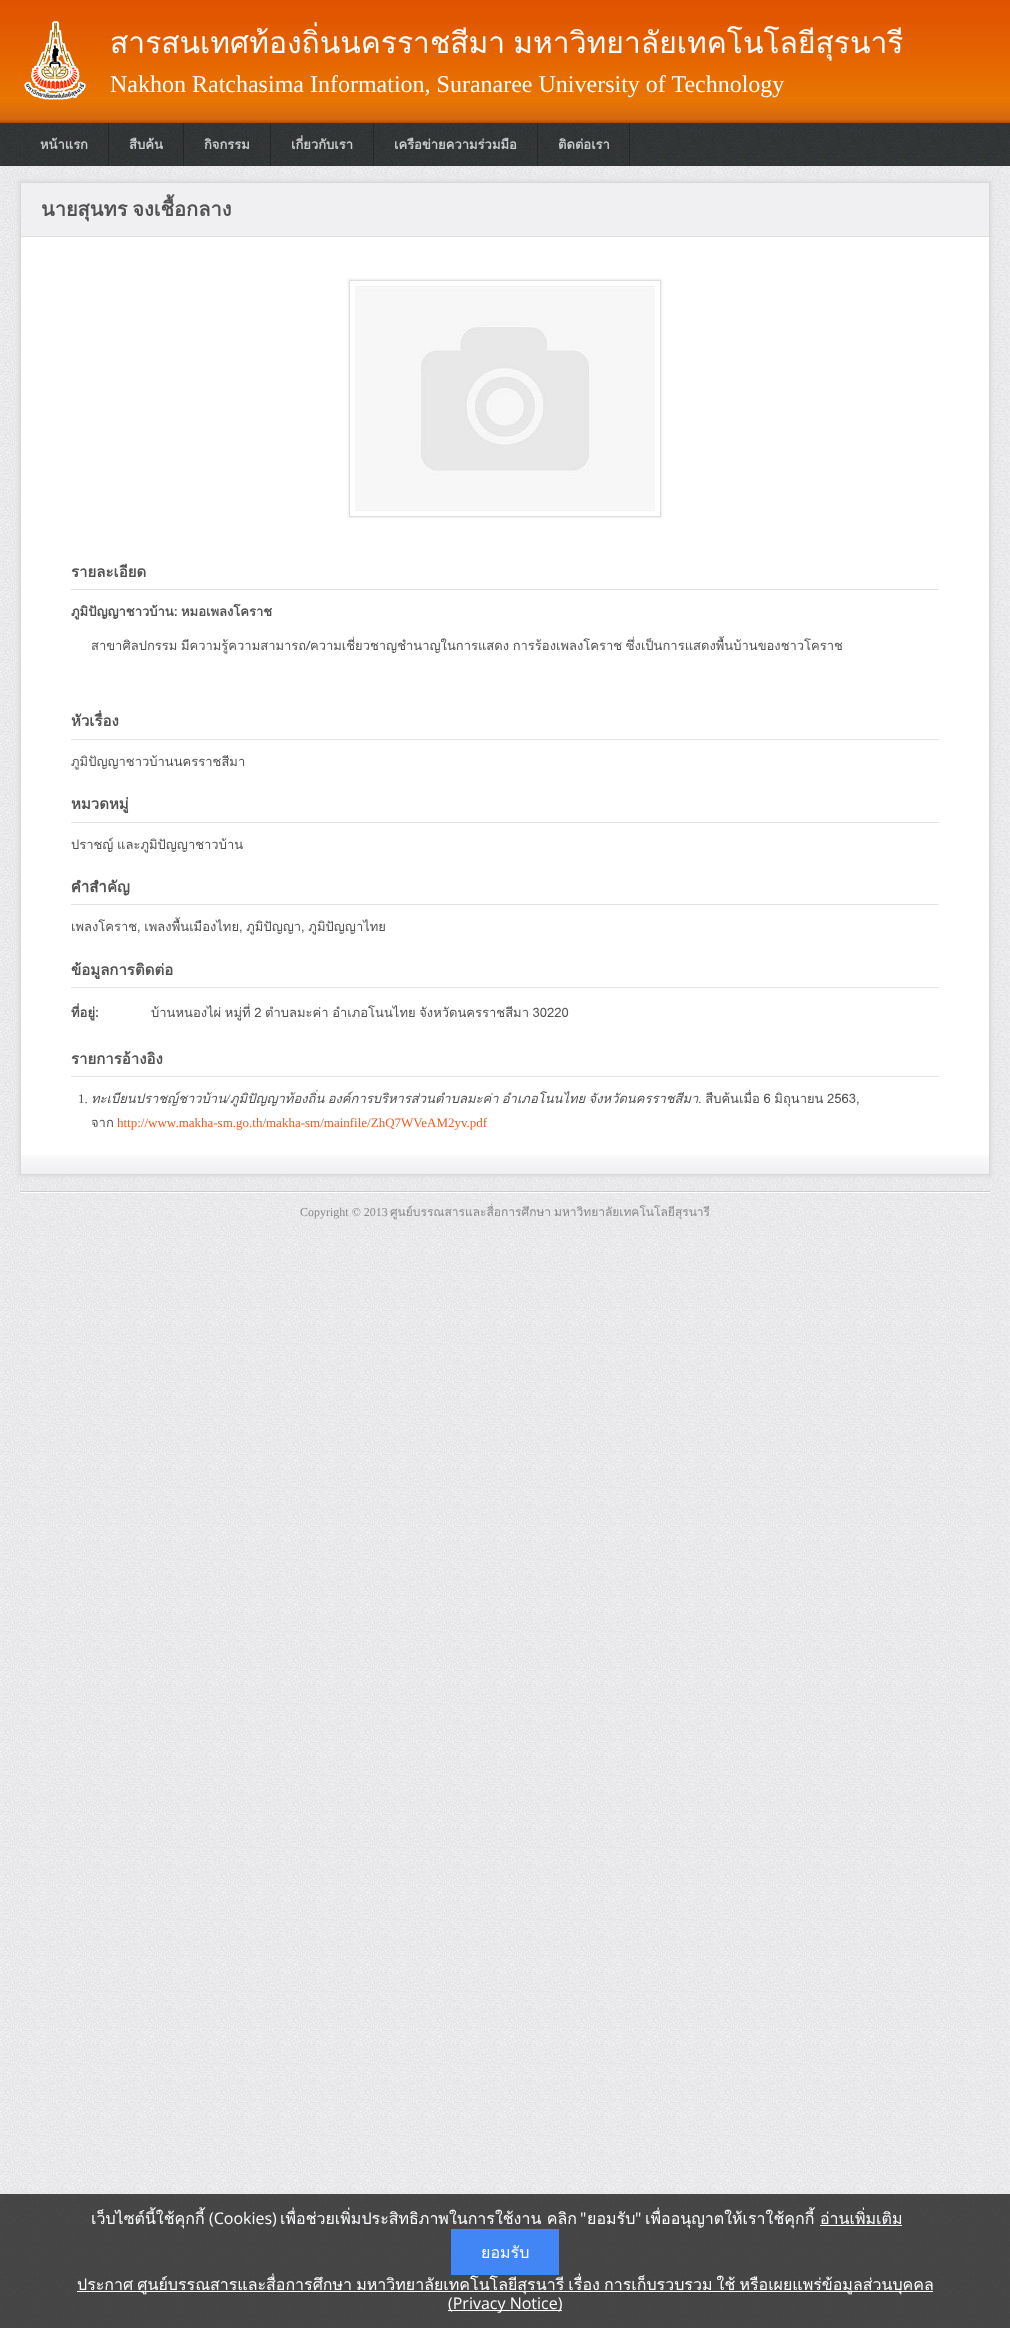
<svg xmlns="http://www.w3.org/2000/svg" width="1010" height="2328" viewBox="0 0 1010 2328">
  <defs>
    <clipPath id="clip1"><path d="M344 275H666V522H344ZM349 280H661V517H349Z" clip-rule="evenodd"/></clipPath>
  </defs>
  <rect width="100%" height="100%" fill="#fff"/>
  <image x="0" y="166" width="1010" height="2162" href="img/1.png"/>
  <image x="0" y="0" width="1010" height="123" href="img/2.png"/>
  <image x="24" y="21" width="62" height="79" href="img/3.png"/>
  <path d="M0 123h1010v43H0z" fill="#313435"/>
  <image x="0" y="123" width="1010" height="43" href="img/4.png"/>
  <path d="M20 123h88v43H20z" fill="#313435"/>
  <image x="20" y="123" width="88" height="43" href="img/5.png"/>
  <path d="M108 123h1v43H108z" fill="#252728"/>
  <path d="M109 123h74v43H109z" fill="#313435"/>
  <image x="109" y="123" width="74" height="43" href="img/6.png"/>
  <path d="M183 123h1v43H183z" fill="#252728"/>
  <path d="M184 123h86v43H184z" fill="#313435"/>
  <image x="184" y="123" width="86" height="43" href="img/7.png"/>
  <path d="M270 123h1v43H270z" fill="#252728"/>
  <path d="M271 123h102v43H271z" fill="#313435"/>
  <image x="271" y="123" width="102" height="43" href="img/8.png"/>
  <path d="M373 123h1v43H373z" fill="#252728"/>
  <path d="M374 123h163v43H374z" fill="#313435"/>
  <image x="374" y="123" width="163" height="43" href="img/9.png"/>
  <path d="M537 123h1v43H537z" fill="#252728"/>
  <path d="M538 123h91v43H538z" fill="#313435"/>
  <image x="538" y="123" width="91" height="43" href="img/10.png"/>
  <path d="M629 123h1v43H629z" fill="#252728"/>
  <path d="M20 1191h970v1H20z" fill="#cacccd"/>
  <path d="M18 180h974v997H18z" fill="#dedede" filter="blur(1.5px)"/>
  <path d="M21 237h968v918H21z" fill="#fff"/>
  <image x="21" y="1155" width="968" height="19" href="img/11.png"/>
  <path d="M20.5 182.5h969v992H20.5z" fill="none" stroke="#d8d8d8"/>
  <path d="M21 183h968v53H21z" fill="#f0f0f3"/>
  <g clip-path="url(#clip1)">
    <path d="M348 279h314v239H348z" fill="#ececec" filter="blur(1px)"/>
  </g>
  <path d="M349.5 280.5h311v236H349.5z" fill="none" stroke="#dedede"/>
  <image x="355" y="286" width="300" height="225" href="img/12.png"/>
  <path d="M71 589h868v1H71z" fill="#e2e2e2"/>
  <path d="M71 739h868v1H71z" fill="#e2e2e2"/>
  <path d="M71 822h868v1H71z" fill="#e2e2e2"/>
  <path d="M71 904h868v1H71z" fill="#e2e2e2"/>
  <path d="M71 987h868v1H71z" fill="#e2e2e2"/>
  <path d="M71 1076h868v1H71z" fill="#e2e2e2"/>
  <path d="M20 1192h970v1H20z" fill="#fff"/>
  <path d="M0 2194h1010v134H0z" fill="#000000b3"/>
  <path d="M820 2225h82v1H820z" fill="#fff"/>
  <path d="M77 2291h856v1H77z" fill="#fff"/>
  <path d="M448 2310h114v1H448z" fill="#fff"/>
  <text x="110" y="53" word-spacing="-2" font-family="Loma" font-size="30" fill="#fdfeff">สารสนเทศท้องถิ่นนครราชสีมา มหาวิทยาลัยเทคโนโลยีสุรนารี</text>
  <text x="110" y="92" font-family="Liberation Serif" font-size="24" fill="#fdfeff">Nakhon Ratchasima Information, Suranaree University of Technology</text>
  <g font-family="Loma" font-size="13" font-weight="bold" fill="#cacccd">
    <text x="40" y="149">หน้าแรก</text>
    <text x="129" y="149">สืบค้น</text>
    <text x="204" y="149">กิจกรรม</text>
    <text x="291" y="149">เกี่ยวกับเรา</text>
    <text x="394" y="149">เครือข่ายความร่วมมือ</text>
    <text x="558" y="149">ติดต่อเรา</text>
  </g>
  <text x="41" y="216" word-spacing="-2" font-family="Loma" font-size="20" font-weight="bold" fill="#525253">นายสุนทร จงเชื้อกลาง</text>
  <text x="71" y="577" font-family="Loma" font-size="15" font-weight="bold" fill="#525253">รายละเอียด</text>
  <g font-family="Loma" font-size="13" font-weight="bold" fill="#525253">
    <text x="71" y="616">ภูมิปัญญาชาวบ้าน:</text>
    <text x="181" y="616">หมอเพลงโคราช</text>
  </g>
  <text x="91" y="650" word-spacing="-0.75" font-family="Loma" font-size="13" fill="#525253">สาขาศิลปกรรม มีความรู้ความสามารถ/ความเชี่ยวชาญชำนาญในการแสดง การร้องเพลงโคราช ซึ่งเป็นการแสดงพื้นบ้านของชาวโคราช</text>
  <text x="71" y="726" font-family="Loma" font-size="15" font-weight="bold" fill="#525253">หัวเรื่อง</text>
  <text x="71" y="766" font-family="Loma" font-size="13" fill="#525253">ภูมิปัญญาชาวบ้านนครราชสีมา</text>
  <text x="71" y="809" font-family="Loma" font-size="15" font-weight="bold" fill="#525253">หมวดหมู่</text>
  <text x="71" y="849" word-spacing="-0.75" font-family="Loma" font-size="13" fill="#525253">ปราชญ์ และภูมิปัญญาชาวบ้าน</text>
  <text x="71" y="892" font-family="Loma" font-size="15" font-weight="bold" fill="#525253">คำสำคัญ</text>
  <text x="71" y="931" word-spacing="-0.75" font-family="Loma" font-size="13" fill="#525253">เพลงโคราช, เพลงพื้นเมืองไทย, ภูมิปัญญา, ภูมิปัญญาไทย</text>
  <text x="71" y="975" font-family="Loma" font-size="15" font-weight="bold" fill="#525253">ข้อมูลการติดต่อ</text>
  <text x="71" y="1017" font-family="Loma" font-size="13" font-weight="bold" fill="#525253">ที่อยู่:</text>
  <text x="151" y="1017" word-spacing="-0.75" font-family="Loma" font-size="13" fill="#525253">บ้านหนองไผ่ หมู่ที่ 2 ตำบลมะค่า อำเภอโนนไทย จังหวัดนครราชสีมา 30220</text>
  <text x="71" y="1064" font-family="Loma" font-size="15" font-weight="bold" fill="#525253">รายการอ้างอิง</text>
  <text x="78" y="1103" font-family="Liberation Serif" font-size="13" fill="#525253">1.</text>
  <text x="91" y="1103" font-family="Loma" font-size="13" font-style="italic" fill="#525253">ทะเบียนปราชญ์ชาวบ้าน</text>
  <text x="226" y="1103" font-family="Liberation Serif" font-size="13" font-style="italic" fill="#525253">/</text>
  <text x="230" y="1103" word-spacing="-1" font-family="Loma" font-size="13" font-style="italic" fill="#525253">ภูมิปัญญาท้องถิ่น องค์การบริหารส่วนตำบลมะค่า อำเภอโนนไทย จังหวัดนครราชสีมา</text>
  <g font-family="Loma" font-size="13" fill="#525253">
    <text x="698" y="1103" word-spacing="-0.75">. สืบค้นเมื่อ 6 มิถุนายน 2563,</text>
    <text x="91" y="1127">จาก</text>
  </g>
  <text x="117" y="1127" font-family="Liberation Serif" font-size="13" fill="#f15b23">http://www.makha-sm.go.th/makha-sm/mainfile/ZhQ7WVeAM2yv.pdf</text>
  <text x="300" y="1216" font-family="Liberation Serif" font-size="12" fill="#88888a">Copyright © 2013</text>
  <g font-family="Loma" font-size="12" fill="#88888a">
    <text x="390" y="1216">ศูนย์บรรณสารและสื่อการศึกษา</text>
    <text x="554" y="1216">มหาวิทยาลัยเทคโนโลยีสุรนารี</text>
  </g>
  <text x="91" y="2224" font-family="Loma" font-size="16" fill="#fdfeff">เว็บไซต์นี้ใช้คุกกี้</text>
  <text x="209" y="2224" font-family="Open Sans" font-size="16" fill="#fdfeff">(Cookies)</text>
  <text x="280" y="2224" font-family="Loma" font-size="16" fill="#fdfeff">เพื่อช่วยเพิ่มประสิทธิภาพในการใช้งาน คลิก</text>
  <text x="580" y="2224" font-family="Open Sans" font-size="16" fill="#fdfeff">"</text>
  <text x="587" y="2224" font-family="Loma" font-size="16" fill="#fdfeff">ยอมรับ</text>
  <text x="635" y="2224" font-family="Open Sans" font-size="16" fill="#fdfeff">"</text>
  <g font-family="Loma" font-size="16" fill="#fdfeff">
    <text x="645" y="2224">เพื่ออนุญาตให้เราใช้คุกกี้</text>
    <text x="820" y="2224">อ่านเพิ่มเติม</text>
    <text x="77" y="2290" word-spacing="-1.25">ประกาศ ศูนย์บรรณสารและสื่อการศึกษา มหาวิทยาลัยเทคโนโลยีสุรนารี เรื่อง การเก็บรวบรวม ใช้ หรือเผยแพร่ข้อมูลส่วนบุคคล</text>
  </g>
  <path d="M451 2229h108v46H451z" fill="#4285f4"/>
  <text x="481" y="2258" font-family="Loma" font-size="16" fill="#fdfeff">ยอมรับ</text>
  <text x="448" y="2309" font-family="Open Sans" font-size="16" fill="#fdfeff">(Privacy Notice)</text>
</svg>
